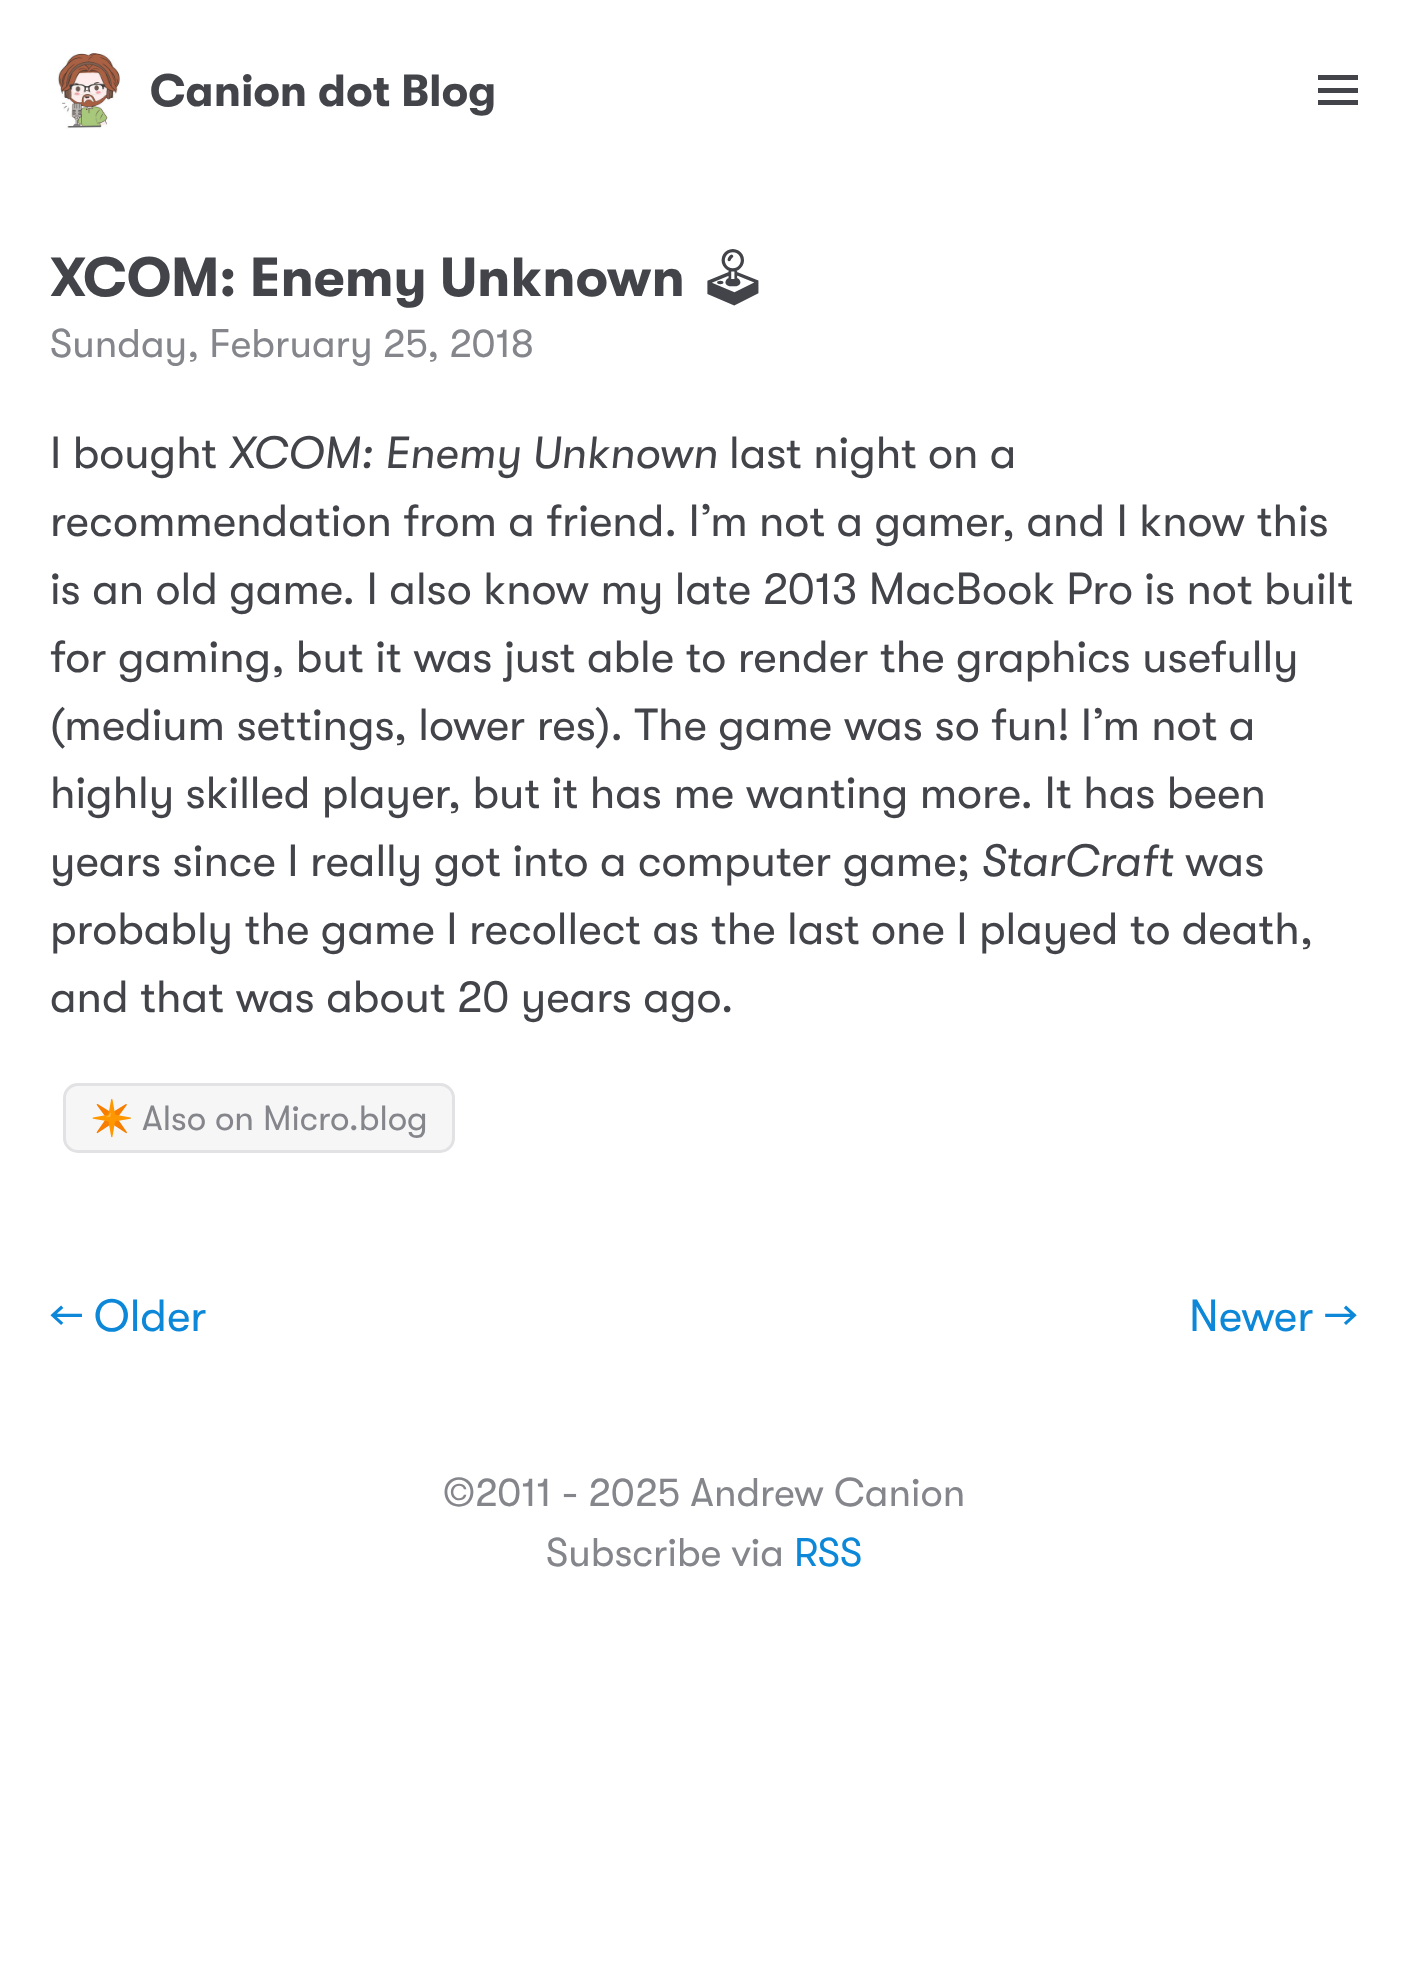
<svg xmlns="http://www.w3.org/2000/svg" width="1406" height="1975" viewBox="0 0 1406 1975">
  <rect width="100%" height="100%" fill="#fff"/>
  <image x="57" y="53" width="63" height="76" href="img/1.png"/>
  <path d="M1318 75h40v5H1318z" fill="#42444a"/>
  <path d="M1318 88h40v5H1318z" fill="#42444a"/>
  <path d="M1318 100h40v5H1318z" fill="#42444a"/>
  <rect x="64.5" y="1084.5" width="389" height="67" rx="13.5" fill="#f6f6f6" stroke="#e2e2e4" stroke-width="3"/>
  <text x="150" y="106" font-family="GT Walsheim" font-size="45" font-weight="bold" fill="#42444a">Canion dot Blog</text>
  <text x="50" y="296" font-family="GT Walsheim" font-size="55" font-weight="bold" fill="#42444a">XCOM: Enemy Unknown</text>
  <text x="698" y="296" font-family="Noto Emoji" font-size="55" font-weight="bold" fill="#42444a">🕹</text>
  <text x="50" y="357" font-family="GT Walsheim" font-size="40" fill="#84868b">Sunday, February 25, 2018</text>
  <text x="50" y="468" font-family="GT Walsheim" font-size="45" fill="#42444a">I bought</text>
  <text x="228" y="468" font-family="GT Walsheim" font-size="45" font-style="italic" fill="#42444a">XCOM: Enemy Unknown</text>
  <g font-family="GT Walsheim" font-size="45" fill="#42444a">
    <text x="729" y="468">last night on a</text>
    <text x="50" y="536">recommendation from a friend. I’m not a gamer, and I know this</text>
    <text x="50" y="604">is an old game. I also know my late 2013 MacBook Pro is not built</text>
    <text x="50" y="672">for gaming, but it was just able to render the graphics usefully</text>
    <text x="50" y="740">(medium settings, lower res). The game was so fun! I’m not a</text>
    <text x="50" y="808">highly skilled player, but it has me wanting more. It has been</text>
    <text x="50" y="876">years since I really got into a computer game;</text>
  </g>
  <text x="981" y="876" font-family="GT Walsheim" font-size="45" font-style="italic" fill="#42444a">StarCraft</text>
  <g font-family="GT Walsheim" font-size="45" fill="#42444a">
    <text x="1185" y="876">was</text>
    <text x="50" y="944">probably the game I recollect as the last one I played to death,</text>
    <text x="50" y="1012">and that was about 20 years ago.</text>
  </g>
  <text x="90" y="1130" font-family="Noto Color Emoji" font-size="35" fill="#84868b">✴️</text>
  <text x="142" y="1130" font-family="GT Walsheim" font-size="35" fill="#84868b">Also on Micro.blog</text>
  <g font-family="GT Walsheim" font-size="45" fill="#0d88d8">
    <text x="50" y="1331">← Older</text>
    <text x="1189" y="1331">Newer →</text>
  </g>
  <g font-family="GT Walsheim" font-size="40" fill="#84868b">
    <text x="443" y="1506">©2011 - 2025 Andrew Canion</text>
    <text x="546" y="1566">Subscribe via</text>
  </g>
  <text x="794" y="1566" font-family="GT Walsheim" font-size="40" fill="#0d88d8">RSS</text>
</svg>
